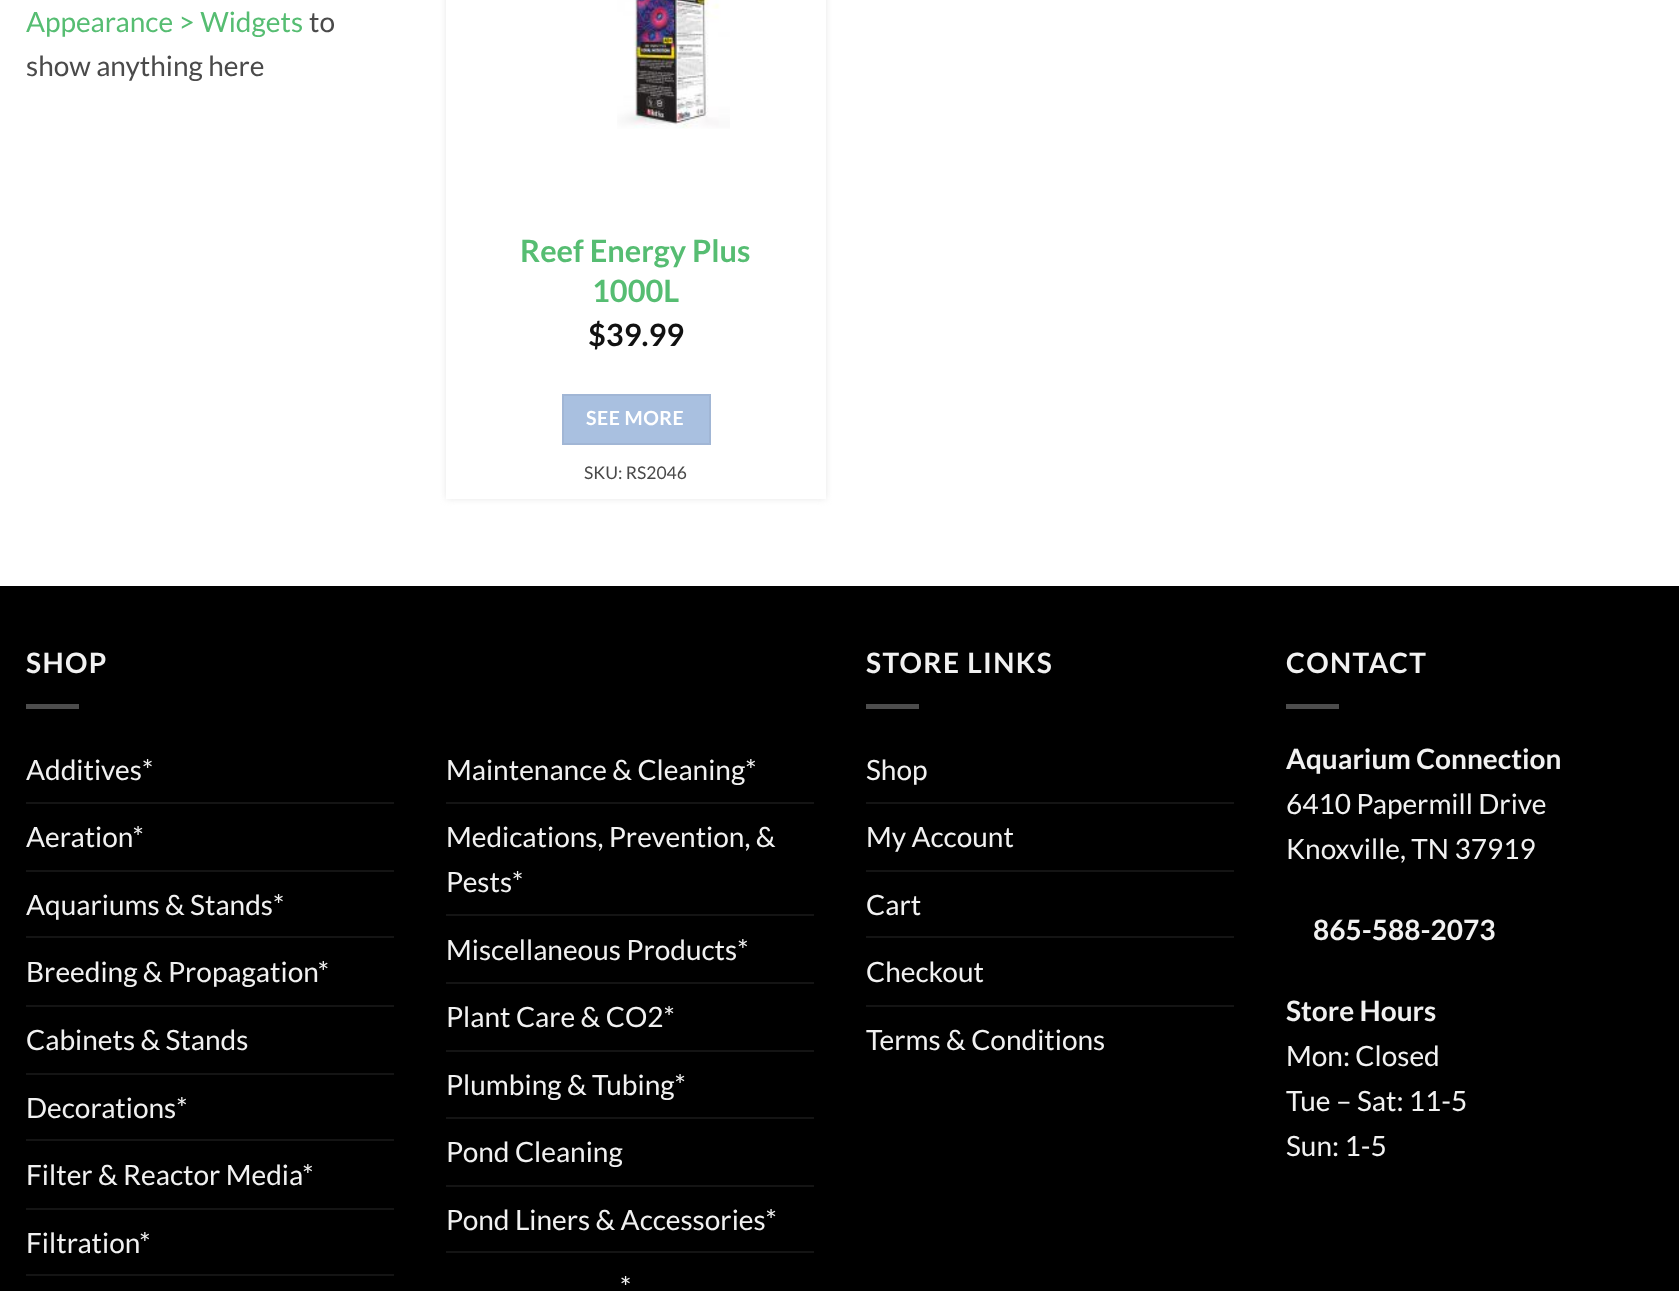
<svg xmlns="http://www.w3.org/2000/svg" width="1679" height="1291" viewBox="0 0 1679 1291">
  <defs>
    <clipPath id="clip1"><path d="M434 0H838V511H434ZM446-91H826V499H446Z" clip-rule="evenodd"/></clipPath>
  </defs>
  <rect width="100%" height="100%" fill="#fff"/>
  <g clip-path="url(#clip1)">
    <path d="M446 -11h380v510H446z" fill="#e8e8e8" filter="blur(3.5px)"/>
  </g>
  <image x="617" y="0" width="113" height="129" href="img/1.png"/>
  <path d="M563 395h147v49H563z" fill="#a9c0e0" stroke="#a1b6d5" stroke-width="2"/>
  <path d="M0 586h1679v705H0z" fill="#000"/>
  <path d="M26 704h53v5H26z" fill="#4d4d4d"/>
  <path d="M26 802h368v2H26z" fill="#141414"/>
  <path d="M26 870h368v2H26z" fill="#141414"/>
  <path d="M26 936h368v2H26z" fill="#141414"/>
  <path d="M26 1005h368v2H26z" fill="#141414"/>
  <path d="M26 1073h368v2H26z" fill="#141414"/>
  <path d="M26 1139h368v2H26z" fill="#141414"/>
  <path d="M26 1208h368v2H26z" fill="#141414"/>
  <path d="M26 1274h368v2H26z" fill="#141414"/>
  <path d="M446 802h368v2H446z" fill="#141414"/>
  <path d="M446 914h368v2H446z" fill="#141414"/>
  <path d="M446 982h368v2H446z" fill="#141414"/>
  <path d="M446 1050h368v2H446z" fill="#141414"/>
  <path d="M446 1117h368v2H446z" fill="#141414"/>
  <path d="M446 1185h368v2H446z" fill="#141414"/>
  <path d="M446 1251h368v2H446z" fill="#141414"/>
  <path d="M866 704h53v5H866z" fill="#4d4d4d"/>
  <path d="M866 802h368v2H866z" fill="#141414"/>
  <path d="M866 870h368v2H866z" fill="#141414"/>
  <path d="M866 936h368v2H866z" fill="#141414"/>
  <path d="M866 1005h368v2H866z" fill="#141414"/>
  <path d="M1286 704h53v5H1286z" fill="#4d4d4d"/>
  <text x="26" y="32" font-family="Lato" font-size="28" fill="#56bd72">Appearance &gt; Widgets</text>
  <g font-family="Lato" font-size="28" fill="#4a4a4a">
    <text x="309" y="32">to</text>
    <text x="26" y="76">show anything here</text>
  </g>
  <g font-family="Lato" font-size="30.75" font-weight="bold" fill="#56bd72">
    <text x="520" y="262">Reef Energy Plus</text>
    <text x="592" y="302">1000L</text>
  </g>
  <text x="588" y="346" font-family="Lato" font-size="30.75" font-weight="bold" fill="#111">$39.99</text>
  <text x="586" y="425" font-family="Lato" font-size="19.5" font-weight="bold" letter-spacing="0.5" fill="#fff">SEE MORE</text>
  <text x="584" y="479" font-family="Lato" font-size="17.5" fill="#4a4a4a">SKU: RS2046</text>
  <text x="26" y="673" font-family="Lato" font-size="28" font-weight="bold" letter-spacing="1.4" fill="#f1f1f1">SHOP</text>
  <g font-family="Lato" font-size="28" fill="#f1f1f1">
    <text x="26" y="780">Additives*</text>
    <text x="26" y="847">Aeration*</text>
    <text x="26" y="915">Aquariums &amp; Stands*</text>
    <text x="26" y="982">Breeding &amp; Propagation*</text>
    <text x="26" y="1050">Cabinets &amp; Stands</text>
    <text x="26" y="1118">Decorations*</text>
    <text x="26" y="1185">Filter &amp; Reactor Media*</text>
    <text x="26" y="1253">Filtration*</text>
    <text x="446" y="780">Maintenance &amp; Cleaning*</text>
    <text x="446" y="847">Medications, Prevention, &amp;</text>
    <text x="446" y="892">Pests*</text>
    <text x="446" y="960">Miscellaneous Products*</text>
    <text x="446" y="1027">Plant Care &amp; CO2*</text>
    <text x="446" y="1095">Plumbing &amp; Tubing*</text>
    <text x="446" y="1162">Pond Cleaning</text>
    <text x="446" y="1230">Pond Liners &amp; Accessories*</text>
    <text x="620" y="1297">*</text>
  </g>
  <text x="866" y="673" font-family="Lato" font-size="28" font-weight="bold" letter-spacing="1.4" fill="#f1f1f1">STORE LINKS</text>
  <g font-family="Lato" font-size="28" fill="#f1f1f1">
    <text x="866" y="780">Shop</text>
    <text x="866" y="847">My Account</text>
    <text x="866" y="915">Cart</text>
    <text x="866" y="982">Checkout</text>
    <text x="866" y="1050">Terms &amp; Conditions</text>
  </g>
  <text x="1286" y="673" font-family="Lato" font-size="28" font-weight="bold" letter-spacing="1.4" fill="#f1f1f1">CONTACT</text>
  <text x="1286" y="769" font-family="Lato" font-size="28" font-weight="bold" fill="#f1f1f1">Aquarium Connection</text>
  <g font-family="Lato" font-size="28" fill="#f1f1f1">
    <text x="1286" y="814">6410 Papermill Drive</text>
    <text x="1286" y="859">Knoxville, TN 37919</text>
  </g>
  <g font-family="Lato" font-size="28" font-weight="bold" fill="#f1f1f1">
    <text x="1313" y="940">865-588-2073</text>
    <text x="1286" y="1021">Store Hours</text>
  </g>
  <g font-family="Lato" font-size="28" fill="#f1f1f1">
    <text x="1286" y="1066">Mon: Closed</text>
    <text x="1286" y="1111">Tue – Sat: 11-5</text>
    <text x="1286" y="1156">Sun: 1-5</text>
  </g>
</svg>
